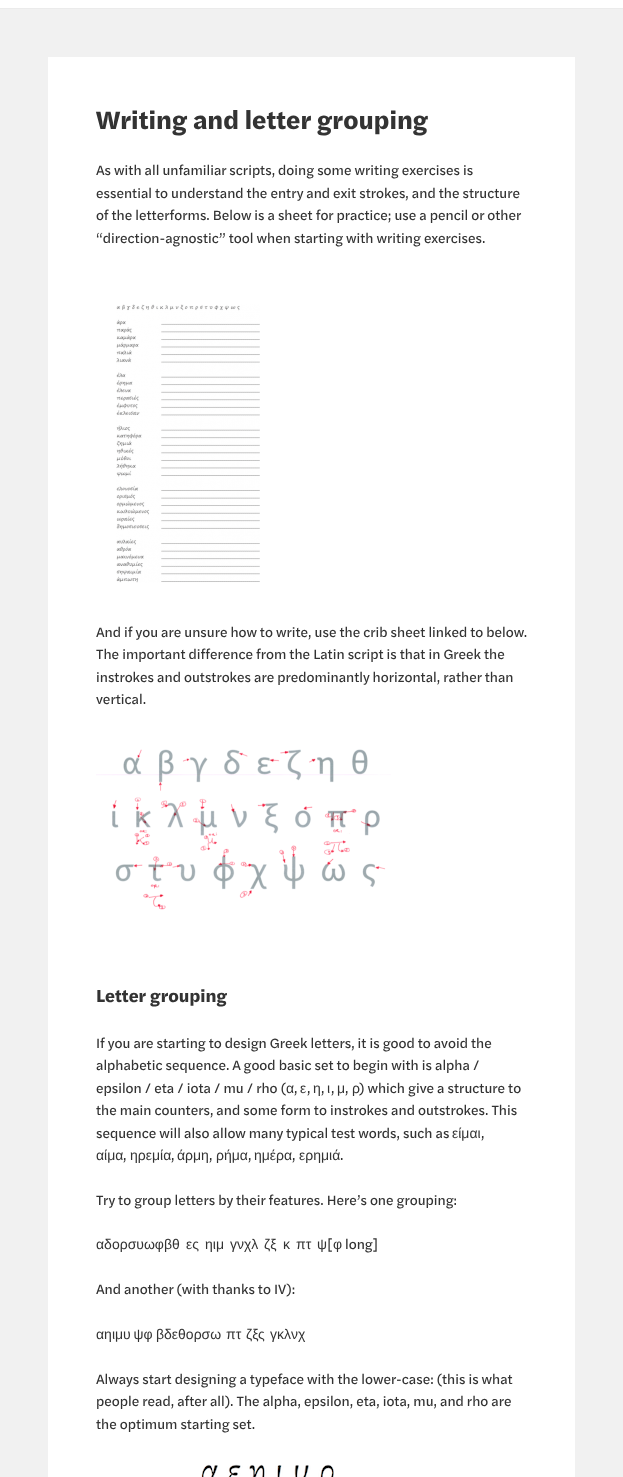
<svg xmlns="http://www.w3.org/2000/svg" width="623" height="1477" viewBox="0 0 623 1477">
  <rect width="100%" height="100%" fill="#f1f1f1"/>
  <path d="M0 0h623v8H0z" fill="#fff"/>
  <path d="M0 8h623v1H0z" fill="#ebebeb"/>
  <path d="M48 57h527v1420H48z" fill="#fff"/>
  <image x="116" y="304" width="144" height="279" href="img/1.png"/>
  <image x="96" y="749" width="295" height="161" href="img/2.png"/>
  <image x="201" y="1464" width="133" height="13" href="img/3.png"/>
  <text x="96" y="129" font-family="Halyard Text" font-size="26" font-weight="bold" fill="#333">Writing and letter grouping</text>
  <g font-family="Halyard Text" font-size="14" fill="#333">
    <text x="96" y="175">As with all unfamiliar scripts, doing some writing exercises is</text>
    <text x="96" y="198">essential to understand the entry and exit strokes, and the structure</text>
    <text x="96" y="220">of the letterforms. Below is a sheet for practice; use a pencil or other</text>
    <text x="96" y="243">“direction-agnostic” tool when starting with writing exercises.</text>
    <text x="96" y="637">And if you are unsure how to write, use the crib sheet linked to below.</text>
    <text x="96" y="659">The important difference from the Latin script is that in Greek the</text>
    <text x="96" y="682">instrokes and outstrokes are predominantly horizontal, rather than</text>
    <text x="96" y="704">vertical.</text>
  </g>
  <text x="96" y="1002" font-family="Halyard Text" font-size="18" font-weight="bold" fill="#333">Letter grouping</text>
  <g font-family="Halyard Text" font-size="14" fill="#333">
    <text x="96" y="1048">If you are starting to design Greek letters, it is good to avoid the</text>
    <text x="96" y="1070">alphabetic sequence. A good basic set to begin with is alpha /</text>
    <text x="96" y="1093">epsilon / eta / iota / mu / rho (</text>
  </g>
  <text x="286" y="1093" font-family="Liberation Sans" font-size="14" fill="#333">α</text>
  <text x="294" y="1093" font-family="Halyard Text" font-size="14" fill="#333">,</text>
  <text x="300" y="1093" font-family="Liberation Sans" font-size="14" fill="#333">ε</text>
  <text x="307" y="1093" font-family="Halyard Text" font-size="14" fill="#333">,</text>
  <text x="313" y="1093" font-family="Liberation Sans" font-size="14" fill="#333">η</text>
  <text x="321" y="1093" font-family="Halyard Text" font-size="14" fill="#333">,</text>
  <text x="327" y="1093" font-family="Liberation Sans" font-size="14" fill="#333">ι</text>
  <text x="331" y="1093" font-family="Halyard Text" font-size="14" fill="#333">,</text>
  <text x="337" y="1093" font-family="Liberation Sans" font-size="14" fill="#333">μ</text>
  <text x="345" y="1093" font-family="Halyard Text" font-size="14" fill="#333">,</text>
  <text x="352" y="1093" font-family="Liberation Sans" font-size="14" fill="#333">ρ</text>
  <g font-family="Halyard Text" font-size="14" fill="#333">
    <text x="359" y="1093">) which give a structure to</text>
    <text x="96" y="1115">the main counters, and some form to instrokes and outstrokes. This</text>
    <text x="96" y="1138">sequence will also allow many typical test words, such as</text>
  </g>
  <text x="452" y="1138" font-family="Liberation Sans" font-size="14" fill="#333">είμαι</text>
  <text x="481" y="1138" font-family="Halyard Text" font-size="14" fill="#333">,</text>
  <text x="96" y="1160" font-family="Liberation Sans" font-size="14" fill="#333">αίμα</text>
  <text x="123" y="1160" font-family="Halyard Text" font-size="14" fill="#333">,</text>
  <text x="130" y="1160" font-family="Liberation Sans" font-size="14" fill="#333">ηρεμία</text>
  <text x="171" y="1160" font-family="Halyard Text" font-size="14" fill="#333">,</text>
  <text x="177" y="1160" font-family="Liberation Sans" font-size="14" fill="#333">άρμη</text>
  <text x="209" y="1160" font-family="Halyard Text" font-size="14" fill="#333">,</text>
  <text x="216" y="1160" font-family="Liberation Sans" font-size="14" fill="#333">ρήμα</text>
  <text x="248" y="1160" font-family="Halyard Text" font-size="14" fill="#333">,</text>
  <text x="254" y="1160" font-family="Liberation Sans" font-size="14" fill="#333">ημέρα</text>
  <text x="292" y="1160" font-family="Halyard Text" font-size="14" fill="#333">,</text>
  <text x="299" y="1160" font-family="Liberation Sans" font-size="14" fill="#333">ερημιά</text>
  <g font-family="Halyard Text" font-size="14" fill="#333">
    <text x="340" y="1160">.</text>
    <text x="96" y="1205">Try to group letters by their features. Here’s one grouping:</text>
  </g>
  <g font-family="Liberation Sans" font-size="14" fill="#333">
    <text x="96" y="1249">αδορσυωφβθ</text>
    <text x="186" y="1249">ες</text>
    <text x="205" y="1249">ηιμ</text>
    <text x="230" y="1249">γνχλ</text>
    <text x="264" y="1249">ζξ</text>
    <text x="283" y="1249">κ</text>
    <text x="296" y="1249">πτ</text>
    <text x="317" y="1249">ψ</text>
  </g>
  <text x="327" y="1249" font-family="Halyard Text" font-size="14" fill="#333">[</text>
  <text x="333" y="1249" font-family="Liberation Sans" font-size="14" fill="#333">φ</text>
  <g font-family="Halyard Text" font-size="14" fill="#333">
    <text x="345" y="1249">long]</text>
    <text x="96" y="1294">And another (with thanks to IV):</text>
  </g>
  <g font-family="Liberation Sans" font-size="14" fill="#333">
    <text x="96" y="1339" word-spacing="-1">αηιμυ ψφ</text>
    <text x="156" y="1339">βδεθορσω</text>
    <text x="226" y="1339">πτ</text>
    <text x="246" y="1339">ζξς</text>
    <text x="270" y="1339">γκλνχ</text>
  </g>
  <g font-family="Halyard Text" font-size="14" fill="#333">
    <text x="96" y="1384">Always start designing a typeface with the lower-case: (this is what</text>
    <text x="96" y="1406">people read, after all). The alpha, epsilon, eta, iota, mu, and rho are</text>
    <text x="96" y="1429">the optimum starting set.</text>
  </g>
</svg>
